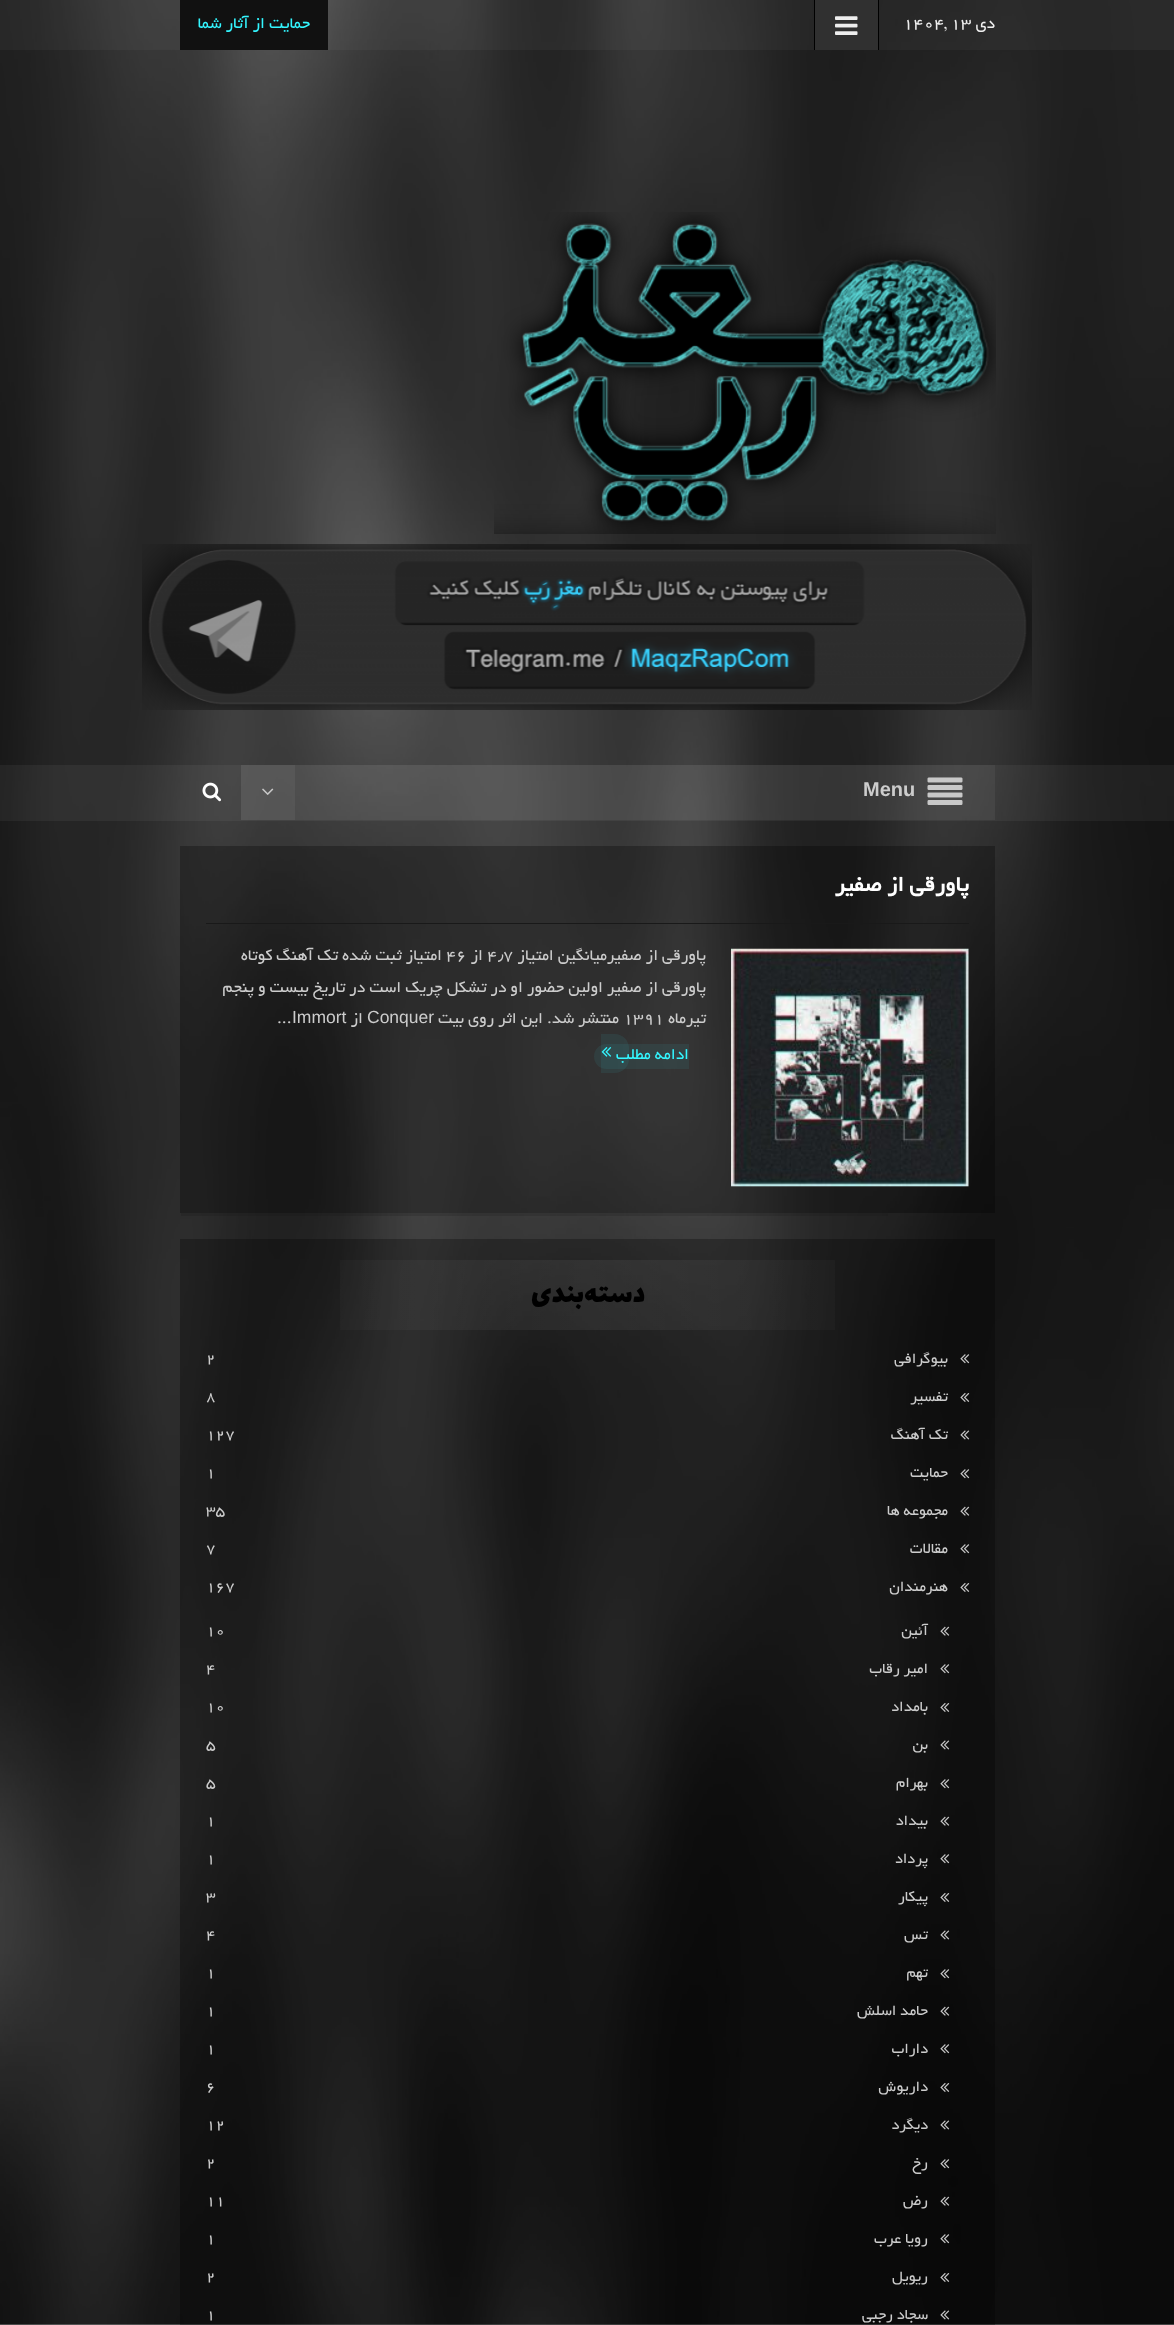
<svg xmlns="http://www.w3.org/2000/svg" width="1174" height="2325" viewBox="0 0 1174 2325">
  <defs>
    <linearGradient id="g1" gradientUnits="userSpaceOnUse" x1="201" y1="1295" x2="974" y2="1295"><stop offset="0" stop-color="#fff" stop-opacity="0"/><stop offset="0.5" stop-color="#fff" stop-opacity="0.06"/><stop offset="1" stop-color="#fff" stop-opacity="0"/></linearGradient>
  </defs>
  <rect width="100%" height="100%" fill="#fff"/>
  <image x="0" y="0" width="1174" height="2325" href="img/1.png"/>
  <path d="M0 0h1174v50H0z" fill="#ffffff0a"/>
  <path d="M815 0h63v50H815z" fill="#303030"/>
  <path d="M878 0h1v50H878z" fill="#000"/>
  <path d="M814 0h1v50H814z" fill="#000"/>
  <image x="835" y="16" width="23" height="19" href="img/2.png"/>
  <path d="M180 0h148v50H180z" fill="#111"/>
  <image x="494" y="212" width="502" height="322" href="img/3.png"/>
  <image x="142" y="544" width="890" height="166" href="img/4.png"/>
  <path d="M0 765h1174v56H0z" fill="#ffffff0d"/>
  <path d="M241 765h754v55H241z" fill="#ffffff0d"/>
  <image x="927" y="777" width="36" height="28" href="img/5.png"/>
  <path d="M241 765h54v55H241z" fill="#ffffff0d"/>
  <image x="262" y="788" width="12" height="7" href="img/6.png"/>
  <image x="202" y="782" width="20" height="20" href="img/7.png"/>
  <path d="M180 846h815v367H180z" fill="#00000047"/>
  <path d="M206 923h763v1H206z" fill="#191919"/>
  <image x="731" y="948" width="238" height="239" href="img/8.png"/>
  <path d="M606.5 1044H689V1069H606.5C599.5 1069 594 1063.5 594 1056.5C594 1049.5 599.5 1044 606.5 1044Z" fill="#33f6ff12"/>
  <path d="M601 1034H615C622.5 1034 629 1040.5 629 1048V1059C629 1066.5 622.5 1073 615 1073H601Z" fill="#33f6ff12"/>
  <image x="601" y="1047" width="11" height="10" href="img/9.png"/>
  <path d="M181 1213h707v3H181z" fill="#14141430"/>
  <path d="M180 1239h815v1086H180z" fill="#00000047"/>
  <path d="M340 1260h495v70H340z" fill="url(#g1)"/>
  <image x="960" y="1354" width="10" height="10" href="img/10.png"/>
  <image x="960" y="1393" width="10" height="9" href="img/11.png"/>
  <image x="960" y="1430" width="10" height="10" href="img/12.png"/>
  <image x="960" y="1469" width="10" height="10" href="img/13.png"/>
  <image x="960" y="1506" width="10" height="10" href="img/14.png"/>
  <image x="960" y="1544" width="10" height="10" href="img/15.png"/>
  <image x="960" y="1583" width="10" height="9" href="img/16.png"/>
  <image x="940" y="1626" width="10" height="10" href="img/17.png"/>
  <image x="940" y="1664" width="10" height="10" href="img/18.png"/>
  <image x="940" y="1703" width="10" height="9" href="img/19.png"/>
  <image x="940" y="1740" width="10" height="10" href="img/20.png"/>
  <image x="940" y="1779" width="10" height="10" href="img/21.png"/>
  <image x="940" y="1816" width="10" height="10" href="img/22.png"/>
  <image x="940" y="1854" width="10" height="10" href="img/23.png"/>
  <image x="940" y="1893" width="10" height="9" href="img/24.png"/>
  <image x="940" y="1930" width="10" height="10" href="img/25.png"/>
  <image x="940" y="1969" width="10" height="10" href="img/26.png"/>
  <image x="940" y="2006" width="10" height="10" href="img/27.png"/>
  <image x="940" y="2044" width="10" height="10" href="img/28.png"/>
  <image x="940" y="2083" width="10" height="9" href="img/29.png"/>
  <image x="940" y="2120" width="10" height="10" href="img/30.png"/>
  <image x="940" y="2159" width="10" height="10" href="img/31.png"/>
  <image x="940" y="2196" width="10" height="10" href="img/32.png"/>
  <image x="940" y="2234" width="10" height="10" href="img/31.png"/>
  <image x="940" y="2273" width="10" height="9" href="img/33.png"/>
  <image x="940" y="2310" width="10" height="10" href="img/30.png"/>
  <text x="995" y="28" font-family="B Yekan" font-size="17.5" direction="rtl" fill="#eee">دی</text>
  <text x="903" y="28" font-family="B Yekan" font-size="17.5" fill="#eee">۱۴۰۴, ۱۳</text>
  <text x="310" y="28" font-family="B Yekan" font-size="17.5" direction="rtl" fill="#33f6ff">حمایت از آثار شما</text>
  <text x="863" y="796" font-family="Liberation Sans" font-size="20" font-weight="bold" fill="#ccc">Menu</text>
  <text x="969" y="891" font-family="B Yekan" font-size="23.75" font-weight="bold" direction="rtl" fill="#fff">پاورقی از صفیر</text>
  <text x="706" y="960" font-family="B Yekan" font-size="17.5" direction="rtl" fill="#ccc">پاورقی از صفیرمیانگین امتیاز</text>
  <text x="503" y="960" font-family="B Yekan" font-size="17.5" fill="#ccc">۷</text>
  <text x="498" y="960" font-family="DejaVu Sans" font-size="17.5" fill="#ccc">٫</text>
  <text x="487" y="960" font-family="B Yekan" font-size="17.5" fill="#ccc">۴</text>
  <text x="483" y="960" font-family="B Yekan" font-size="17.5" direction="rtl" fill="#ccc">از</text>
  <text x="446" y="960" font-family="B Yekan" font-size="17.5" fill="#ccc">۴۶</text>
  <g font-family="B Yekan" font-size="17.5" direction="rtl" fill="#ccc">
    <text x="442" y="960">امتیاز ثبت شده تک آهنگ کوتاه</text>
    <text x="706" y="992">پاورقی از صفیر اولین حضور او در تشکل چریک است در تاریخ بیست و پنجم</text>
    <text x="706" y="1023">تیرماه</text>
  </g>
  <text x="623" y="1023" font-family="B Yekan" font-size="17.5" fill="#ccc">۱۳۹۱</text>
  <text x="619" y="1023" font-family="B Yekan" font-size="17.5" direction="rtl" fill="#ccc">منتشر شد. این اثر روی بیت</text>
  <text x="367" y="1023" font-family="Liberation Sans" font-size="17.5" fill="#ccc">Conquer</text>
  <text x="363" y="1023" font-family="B Yekan" font-size="17.5" direction="rtl" fill="#ccc">از</text>
  <text x="292" y="1023" font-family="Liberation Sans" font-size="17.5" fill="#ccc">Immort</text>
  <text x="277" y="1023" font-family="B Yekan" font-size="17.5" fill="#ccc">...</text>
  <text x="689" y="1059" font-family="B Yekan" font-size="17.5" direction="rtl" fill="#33f6ff">ادامه مطلب</text>
  <text x="645" y="1302" font-family="Lalezar" font-size="30" direction="rtl" fill="#000">دسته‌بندی</text>
  <text x="948" y="1363" font-family="B Yekan" font-size="16.25" direction="rtl" fill="#ccc">بیوگرافی</text>
  <text x="206" y="1363" font-family="B Yekan" font-size="16.25" fill="#ccc">۲</text>
  <text x="948" y="1401" font-family="B Yekan" font-size="16.25" direction="rtl" fill="#ccc">تفسیر</text>
  <text x="206" y="1401" font-family="B Yekan" font-size="16.25" fill="#ccc">۸</text>
  <text x="948" y="1439" font-family="B Yekan" font-size="16.25" direction="rtl" fill="#ccc">تک آهنگ</text>
  <text x="206" y="1439" font-family="B Yekan" font-size="16.25" fill="#ccc">۱۲۷</text>
  <text x="948" y="1477" font-family="B Yekan" font-size="16.25" direction="rtl" fill="#ccc">حمایت</text>
  <text x="206" y="1477" font-family="B Yekan" font-size="16.25" fill="#ccc">۱</text>
  <text x="948" y="1515" font-family="B Yekan" font-size="16.25" direction="rtl" fill="#ccc">مجموعه ها</text>
  <text x="206" y="1515" font-family="B Yekan" font-size="16.25" fill="#ccc">۳۵</text>
  <text x="948" y="1553" font-family="B Yekan" font-size="16.25" direction="rtl" fill="#ccc">مقالات</text>
  <text x="206" y="1553" font-family="B Yekan" font-size="16.25" fill="#ccc">۷</text>
  <text x="948" y="1591" font-family="B Yekan" font-size="16.25" direction="rtl" fill="#ccc">هنرمندان</text>
  <text x="206" y="1591" font-family="B Yekan" font-size="16.25" fill="#ccc">۱۶۷</text>
  <text x="928" y="1635" font-family="B Yekan" font-size="16.25" direction="rtl" fill="#ccc">آئین</text>
  <text x="206" y="1635" font-family="B Yekan" font-size="16.25" fill="#ccc">۱۰</text>
  <text x="928" y="1673" font-family="B Yekan" font-size="16.25" direction="rtl" fill="#ccc">امیر رقاب</text>
  <text x="206" y="1673" font-family="B Yekan" font-size="16.25" fill="#ccc">۴</text>
  <text x="928" y="1711" font-family="B Yekan" font-size="16.25" direction="rtl" fill="#ccc">بامداد</text>
  <text x="206" y="1711" font-family="B Yekan" font-size="16.25" fill="#ccc">۱۰</text>
  <text x="928" y="1749" font-family="B Yekan" font-size="16.25" direction="rtl" fill="#ccc">بن</text>
  <text x="206" y="1749" font-family="B Yekan" font-size="16.25" fill="#ccc">۵</text>
  <text x="928" y="1787" font-family="B Yekan" font-size="16.25" direction="rtl" fill="#ccc">بهرام</text>
  <text x="206" y="1787" font-family="B Yekan" font-size="16.25" fill="#ccc">۵</text>
  <text x="928" y="1825" font-family="B Yekan" font-size="16.25" direction="rtl" fill="#ccc">بیداد</text>
  <text x="206" y="1825" font-family="B Yekan" font-size="16.25" fill="#ccc">۱</text>
  <text x="928" y="1863" font-family="B Yekan" font-size="16.25" direction="rtl" fill="#ccc">پرداد</text>
  <text x="206" y="1863" font-family="B Yekan" font-size="16.25" fill="#ccc">۱</text>
  <text x="928" y="1901" font-family="B Yekan" font-size="16.25" direction="rtl" fill="#ccc">پیکار</text>
  <text x="206" y="1901" font-family="B Yekan" font-size="16.25" fill="#ccc">۳</text>
  <text x="928" y="1939" font-family="B Yekan" font-size="16.25" direction="rtl" fill="#ccc">تس</text>
  <text x="206" y="1939" font-family="B Yekan" font-size="16.25" fill="#ccc">۴</text>
  <text x="928" y="1977" font-family="B Yekan" font-size="16.25" direction="rtl" fill="#ccc">تهم</text>
  <text x="206" y="1977" font-family="B Yekan" font-size="16.25" fill="#ccc">۱</text>
  <text x="928" y="2015" font-family="B Yekan" font-size="16.25" direction="rtl" fill="#ccc">حامد اسلش</text>
  <text x="206" y="2015" font-family="B Yekan" font-size="16.25" fill="#ccc">۱</text>
  <text x="928" y="2053" font-family="B Yekan" font-size="16.25" direction="rtl" fill="#ccc">داراب</text>
  <text x="206" y="2053" font-family="B Yekan" font-size="16.25" fill="#ccc">۱</text>
  <text x="928" y="2091" font-family="B Yekan" font-size="16.25" direction="rtl" fill="#ccc">داریوش</text>
  <text x="206" y="2091" font-family="B Yekan" font-size="16.25" fill="#ccc">۶</text>
  <text x="928" y="2129" font-family="B Yekan" font-size="16.25" direction="rtl" fill="#ccc">دیگرد</text>
  <text x="206" y="2129" font-family="B Yekan" font-size="16.25" fill="#ccc">۱۲</text>
  <text x="928" y="2167" font-family="B Yekan" font-size="16.25" direction="rtl" fill="#ccc">رخ</text>
  <text x="206" y="2167" font-family="B Yekan" font-size="16.25" fill="#ccc">۲</text>
  <text x="928" y="2205" font-family="B Yekan" font-size="16.25" direction="rtl" fill="#ccc">رض</text>
  <text x="206" y="2205" font-family="B Yekan" font-size="16.25" fill="#ccc">۱۱</text>
  <text x="928" y="2243" font-family="B Yekan" font-size="16.25" direction="rtl" fill="#ccc">رویا عرب</text>
  <text x="206" y="2243" font-family="B Yekan" font-size="16.25" fill="#ccc">۱</text>
  <text x="928" y="2281" font-family="B Yekan" font-size="16.25" direction="rtl" fill="#ccc">ریویل</text>
  <text x="206" y="2281" font-family="B Yekan" font-size="16.25" fill="#ccc">۲</text>
  <text x="928" y="2319" font-family="B Yekan" font-size="16.25" direction="rtl" fill="#ccc">سجاد رجبی</text>
  <text x="206" y="2319" font-family="B Yekan" font-size="16.25" fill="#ccc">۱</text>
</svg>
